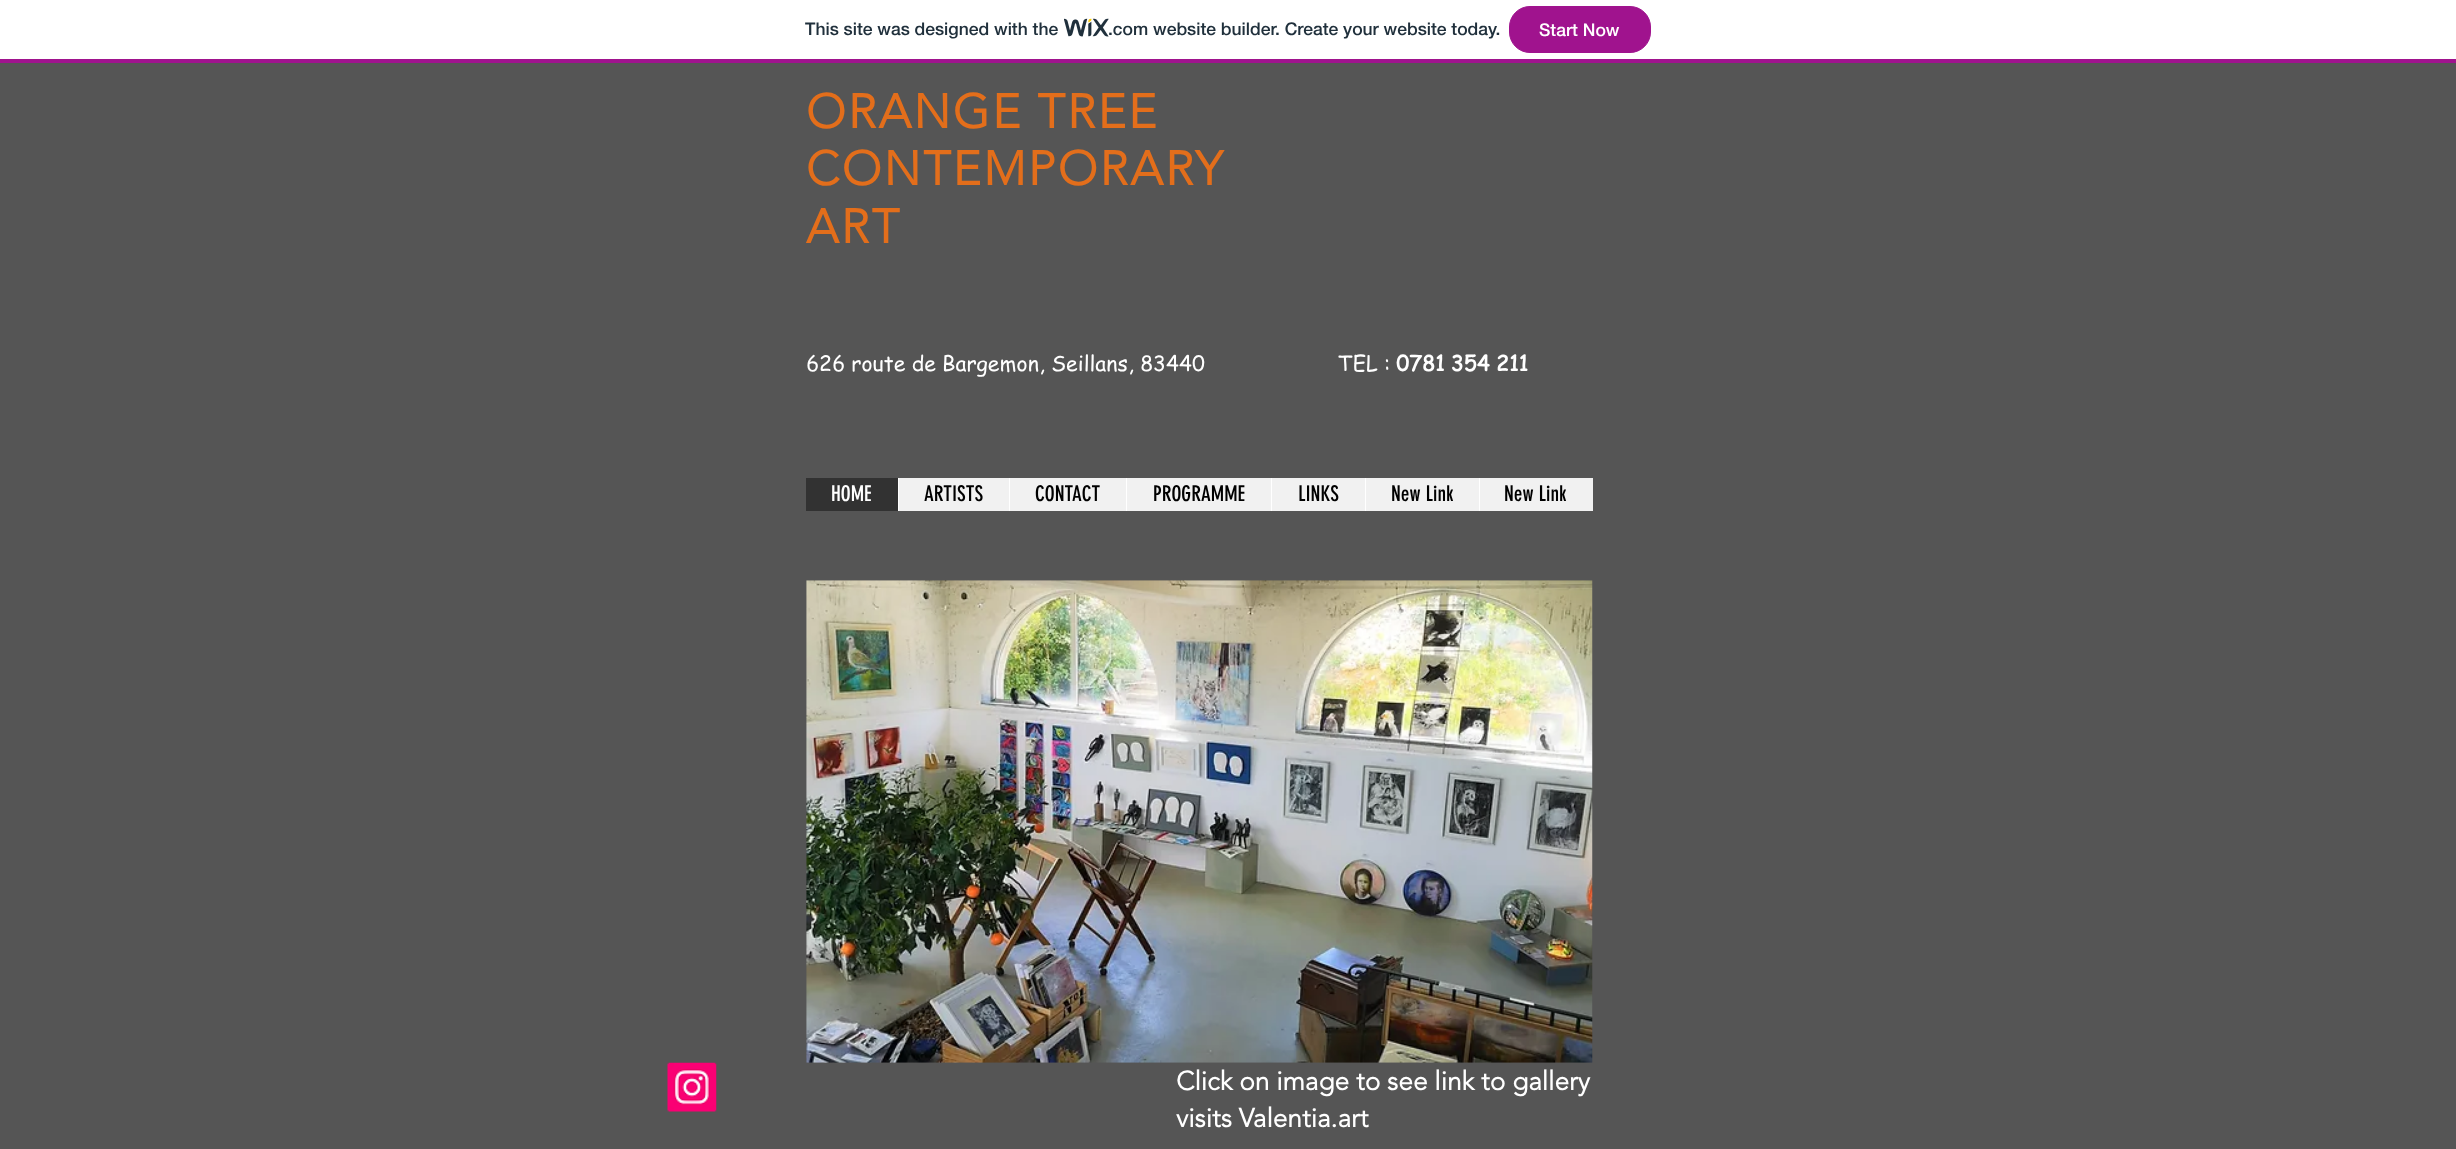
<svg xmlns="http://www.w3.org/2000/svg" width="2456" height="1149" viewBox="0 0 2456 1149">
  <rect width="100%" height="100%" fill="#555"/>
  <path d="M0 0h2456v59H0z" fill="#fff"/>
  <path d="M0 59h2456v4H0z" fill="#a0138e"/>
  <image x="1064" y="18" width="45" height="19" href="img/1.png"/>
  <rect x="1509.5" y="6.5" width="141" height="46" rx="20.5" fill="#a0138e" stroke="#a0138e"/>
  <path d="M899 478h694v33H899z" fill="#f1f1f1"/>
  <path d="M806 478h92v33H806z" fill="#323232"/>
  <path d="M898 478h1v33H898z" fill="#fff"/>
  <path d="M1009 478h1v33H1009z" fill="#fff"/>
  <path d="M1126 478h1v33H1126z" fill="#fff"/>
  <path d="M1271 478h1v33H1271z" fill="#fff"/>
  <path d="M1365 478h1v33H1365z" fill="#fff"/>
  <path d="M1479 478h1v33H1479z" fill="#fff"/>
  <image x="806" y="580" width="787" height="483" href="img/2.png"/>
  <image x="667" y="1062" width="50" height="50" href="img/3.png"/>
  <g font-family="'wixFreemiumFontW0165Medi'" font-size="17.5" font-weight="500" fill="#20303c">
    <text x="805" y="35">This site was designed with the</text>
    <text x="1108" y="35">.com website builder. Create your website today.</text>
  </g>
  <text x="1539" y="36" font-family="'wixFreemiumFontW0165Medi'" font-size="17.5" font-weight="500" fill="#fff">Start Now</text>
  <g font-family="'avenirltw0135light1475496'" font-size="47.5" font-weight="bold" letter-spacing="2.4" fill="#e36e1b">
    <text x="806" y="128">ORANGE TREE</text>
    <text x="806" y="185">CONTEMPORARY</text>
    <text x="806" y="243">ART</text>
  </g>
  <text x="806" y="371" font-family="'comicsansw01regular'" font-size="21.25" fill="#fff" xml:space="preserve">626 route de Bargemon, Seillans, 83440                     TEL :</text>
  <text x="1396" y="371" font-family="'comicsansw01regular'" font-size="21.25" font-weight="bold" fill="#fff">0781 354 211</text>
  <text x="831" y="501" font-family="'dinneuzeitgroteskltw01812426'" font-size="21.25" fill="#fff">HOME</text>
  <g font-family="'dinneuzeitgroteskltw01812426'" font-size="21.25" fill="#000">
    <text x="924" y="501">ARTISTS</text>
    <text x="1035" y="501">CONTACT</text>
    <text x="1153" y="501">PROGRAMME</text>
    <text x="1298" y="501">LINKS</text>
    <text x="1391" y="501">New Link</text>
    <text x="1504" y="501">New Link</text>
  </g>
  <g font-family="'avenirltw0135light1475496'" font-size="26.25" font-weight="bold" fill="#fff">
    <text x="1176" y="1090">Click on image to see link to gallery</text>
    <text x="1176" y="1127">visits Valentia.art</text>
  </g>
</svg>
